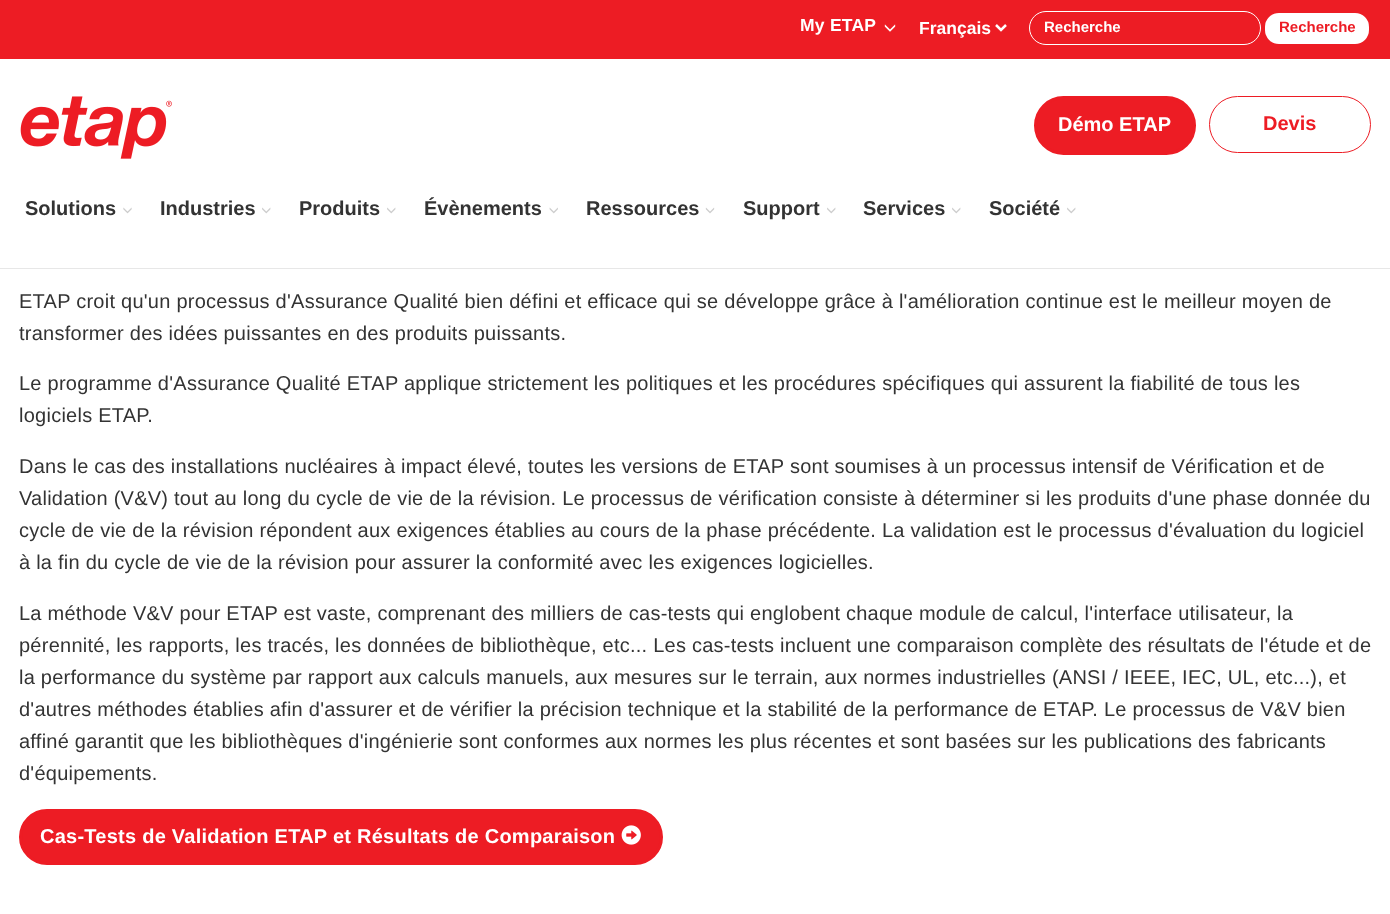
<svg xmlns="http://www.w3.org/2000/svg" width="1390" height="914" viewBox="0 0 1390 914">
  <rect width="100%" height="100%" fill="#fff"/>
  <path d="M0 268h1390v1H0z" fill="#e7e7e7"/>
  <path d="M0 0h1390v59H0z" fill="#ed1c24"/>
  <image x="884" y="24" width="12" height="8" href="img/1.png"/>
  <path d="M996 25L1001 30L1006 25" fill="none" stroke="#fff" stroke-width="2.5"/>
  <rect x="1029.5" y="11.5" width="231" height="33" rx="16.5" fill="none" stroke="#fff"/>
  <rect x="1265" y="13" width="104" height="31" rx="14" fill="#fff"/>
  <image x="20" y="96" width="152" height="63" href="img/2.png"/>
  <rect x="1035.5" y="97.5" width="159" height="56" rx="28" fill="#ed1c24" stroke="#ed1c24" stroke-width="3"/>
  <rect x="1209.5" y="96.5" width="161" height="56" rx="28" fill="none" stroke="#ed1c24"/>
  <image x="123" y="207" width="9" height="7" href="img/3.png"/>
  <image x="262" y="207" width="9" height="7" href="img/4.png"/>
  <image x="387" y="207" width="9" height="7" href="img/4.png"/>
  <image x="549" y="207" width="9" height="7" href="img/5.png"/>
  <image x="705" y="207" width="10" height="7" href="img/6.png"/>
  <image x="827" y="207" width="9" height="7" href="img/4.png"/>
  <image x="952" y="207" width="9" height="7" href="img/4.png"/>
  <image x="1067" y="207" width="9" height="7" href="img/4.png"/>
  <rect x="20.5" y="810.5" width="641" height="53" rx="26.5" fill="#ed1c24" stroke="#ed1c24" stroke-width="3"/>
  <image x="621" y="825" width="20" height="20" href="img/7.png"/>
  <text x="800" y="31" font-family="Liberation Sans" font-size="17.5" font-weight="bold" letter-spacing="0.25" fill="#fff">My ETAP</text>
  <text x="919" y="34" font-family="Liberation Sans" font-size="17.5" font-weight="bold" fill="#fff">Français</text>
  <text x="1044" y="32" font-family="Liberation Sans" font-size="15" font-weight="bold" fill="#fff">Recherche</text>
  <text x="1279" y="32" font-family="Liberation Sans" font-size="15" font-weight="bold" fill="#ed1c24">Recherche</text>
  <text x="1058" y="131" font-family="Liberation Sans" font-size="20" font-weight="bold" fill="#fff">Démo ETAP</text>
  <text x="1263" y="130" font-family="Liberation Sans" font-size="20" font-weight="bold" fill="#ed1c24">Devis</text>
  <g font-family="Liberation Sans" font-size="20" font-weight="bold" fill="#333">
    <text x="25" y="215">Solutions</text>
    <text x="160" y="215">Industries</text>
    <text x="299" y="215">Produits</text>
    <text x="424" y="215">Évènements</text>
    <text x="586" y="215">Ressources</text>
    <text x="743" y="215">Support</text>
    <text x="863" y="215">Services</text>
    <text x="989" y="215">Société</text>
  </g>
  <g font-family="Liberation Sans" font-size="20" letter-spacing="0.25" fill="#333">
    <text x="19" y="308">ETAP croit qu'un processus d'Assurance Qualité bien défini et efficace qui se développe grâce à l'amélioration continue est le meilleur moyen de</text>
    <text x="19" y="340">transformer des idées puissantes en des produits puissants.</text>
    <text x="19" y="390">Le programme d'Assurance Qualité ETAP applique strictement les politiques et les procédures spécifiques qui assurent la fiabilité de tous les</text>
    <text x="19" y="422">logiciels ETAP.</text>
    <text x="19" y="473">Dans le cas des installations nucléaires à impact élevé, toutes les versions de ETAP sont soumises à un processus intensif de Vérification et de</text>
    <text x="19" y="505">Validation (V&amp;V) tout au long du cycle de vie de la révision. Le processus de vérification consiste à déterminer si les produits d'une phase donnée du</text>
    <text x="19" y="537">cycle de vie de la révision répondent aux exigences établies au cours de la phase précédente. La validation est le processus d'évaluation du logiciel</text>
    <text x="19" y="569">à la fin du cycle de vie de la révision pour assurer la conformité avec les exigences logicielles.</text>
    <text x="19" y="620">La méthode V&amp;V pour ETAP est vaste, comprenant des milliers de cas-tests qui englobent chaque module de calcul, l'interface utilisateur, la</text>
    <text x="19" y="652">pérennité, les rapports, les tracés, les données de bibliothèque, etc... Les cas-tests incluent une comparaison complète des résultats de l'étude et de</text>
    <text x="19" y="684">la performance du système par rapport aux calculs manuels, aux mesures sur le terrain, aux normes industrielles (ANSI / IEEE, IEC, UL, etc...), et</text>
    <text x="19" y="716">d'autres méthodes établies afin d'assurer et de vérifier la précision technique et la stabilité de la performance de ETAP. Le processus de V&amp;V bien</text>
    <text x="19" y="748">affiné garantit que les bibliothèques d'ingénierie sont conformes aux normes les plus récentes et sont basées sur les publications des fabricants</text>
    <text x="19" y="780">d'équipements.</text>
  </g>
  <text x="40" y="843" font-family="Liberation Sans" font-size="20" font-weight="bold" letter-spacing="0.25" fill="#fff">Cas-Tests de Validation ETAP et Résultats de Comparaison</text>
</svg>
